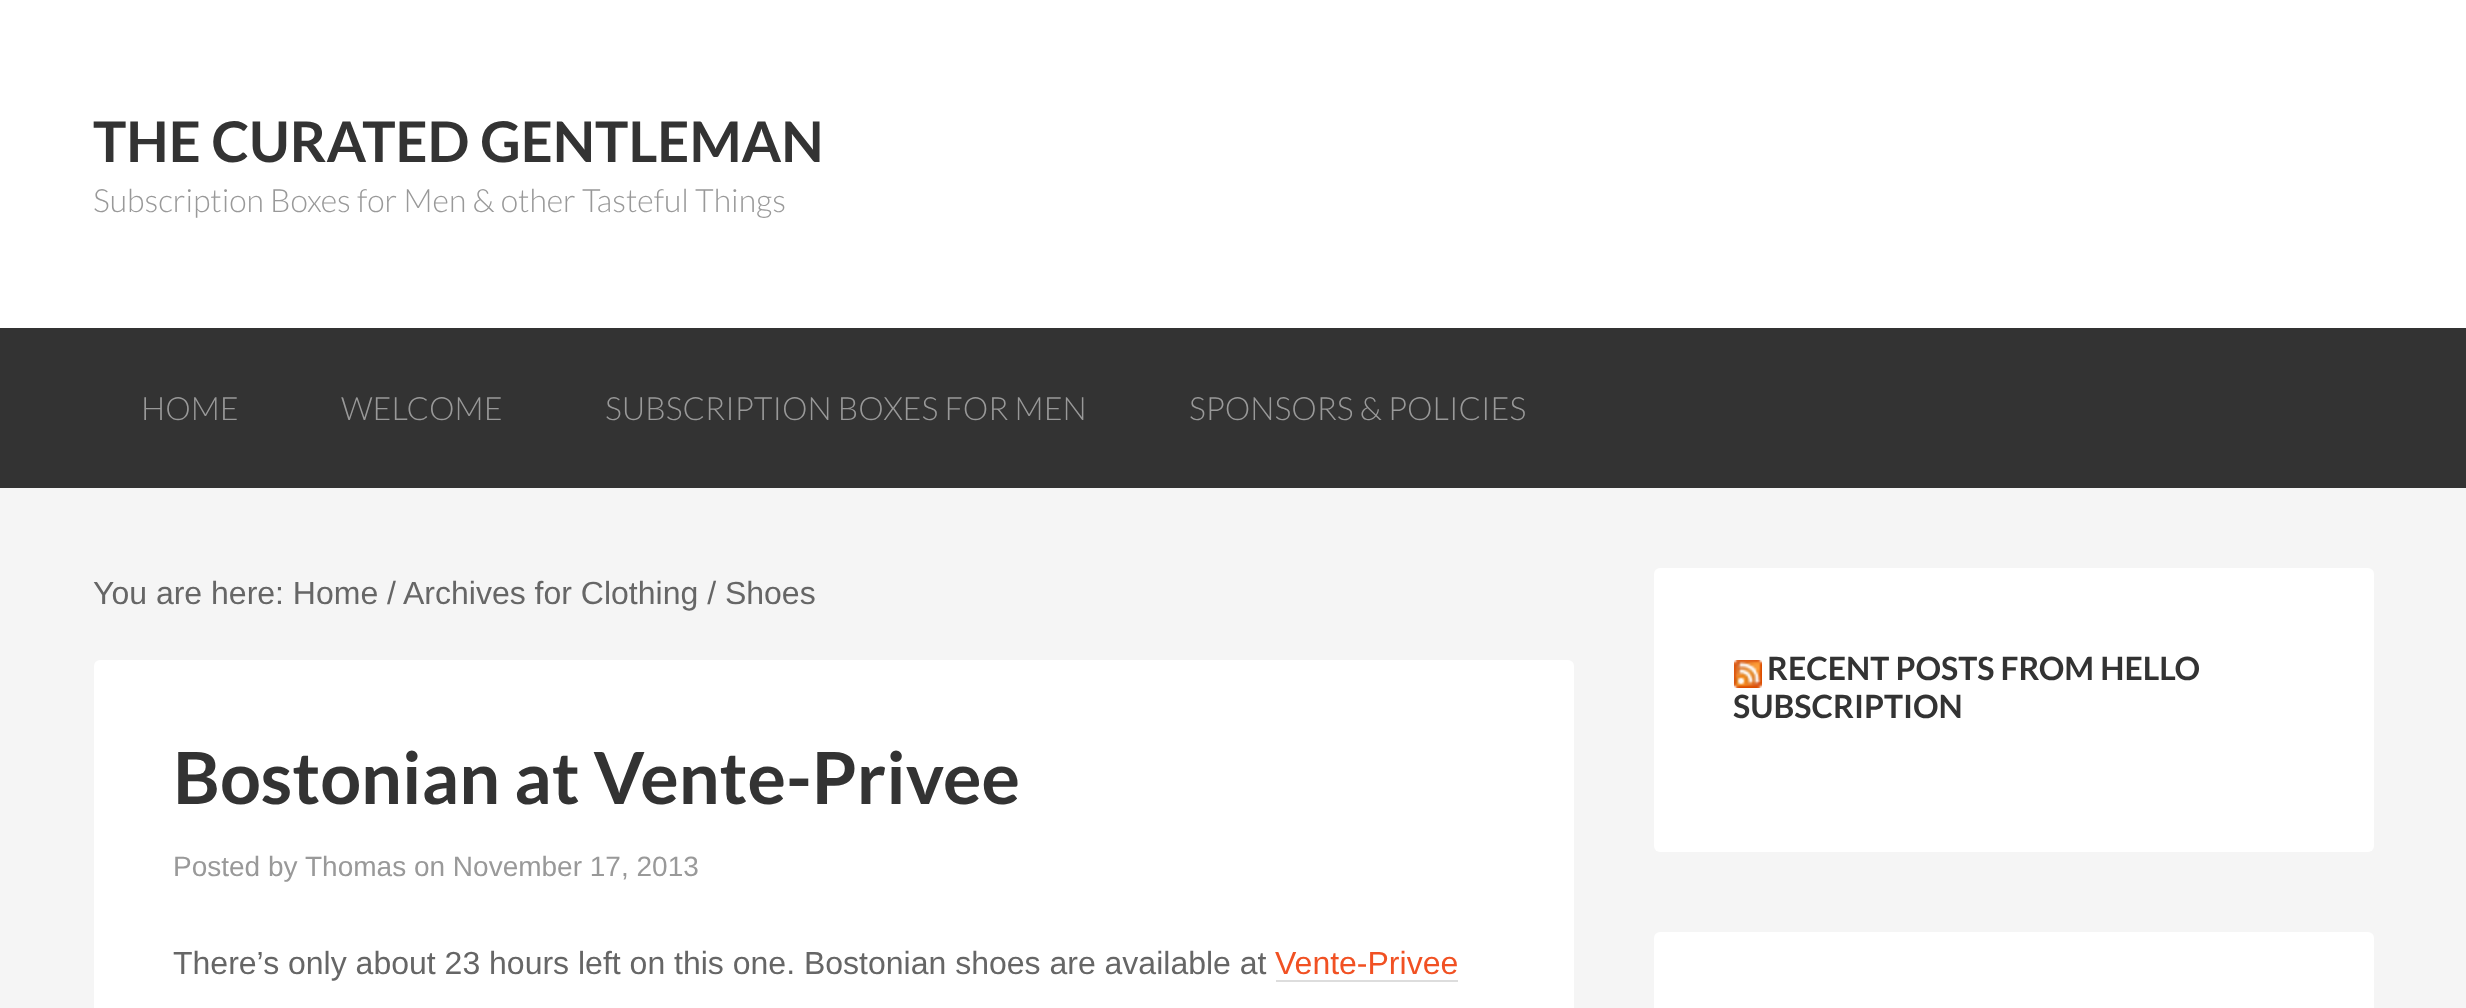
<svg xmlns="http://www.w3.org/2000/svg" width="2466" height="1008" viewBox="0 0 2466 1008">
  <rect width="100%" height="100%" fill="#f5f5f5"/>
  <path d="M0 0h2466v328H0z" fill="#fff"/>
  <path d="M0 328h2466v160H0z" fill="#333"/>
  <rect x="94" y="660" width="1480" height="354" rx="6" fill="#fff"/>
  <path d="M1276 980h182v2H1276z" fill="#ddd"/>
  <rect x="1654" y="568" width="720" height="284" rx="6" fill="#fff"/>
  <image x="1734" y="660" width="28" height="28" href="img/1.png"/>
  <rect x="1654" y="932" width="720" height="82" rx="6" fill="#fff"/>
  <text x="93" y="162" font-family="Lato" font-size="56" font-weight="bold" fill="#333">THE CURATED GENTLEMAN</text>
  <g font-family="Lato" font-size="32" font-weight="300" fill="#999">
    <text x="93" y="212">Subscription Boxes for Men &amp; other Tasteful Things</text>
    <text x="141" y="420">HOME</text>
    <text x="341" y="420">WELCOME</text>
    <text x="605" y="420">SUBSCRIPTION BOXES FOR MEN</text>
    <text x="1189" y="420">SPONSORS &amp; POLICIES</text>
  </g>
  <g font-family="Liberation Sans" font-size="32" fill="#666">
    <text x="93" y="604">You are here: Home /</text>
    <text x="403" y="604">Archives for Clothing / Shoes</text>
  </g>
  <text x="173" y="804" font-family="Lato" font-size="72" font-weight="bold" fill="#333">Bostonian at Vente-Privee</text>
  <g font-family="Liberation Sans" font-size="28" fill="#999">
    <text x="173" y="876">Posted by</text>
    <text x="305" y="876">Thomas on November 17, 2013</text>
  </g>
  <text x="173" y="974" font-family="Liberation Sans" font-size="32" fill="#666">There’s only about 23 hours left on this one. Bostonian shoes are available at</text>
  <text x="1275" y="974" font-family="Liberation Sans" font-size="32" fill="#f15123">Vente-Privee</text>
  <g font-family="Lato" font-size="32" font-weight="bold" fill="#333">
    <text x="1767" y="680">RECENT POSTS FROM HELLO</text>
    <text x="1733" y="718">SUBSCRIPTION</text>
  </g>
</svg>
